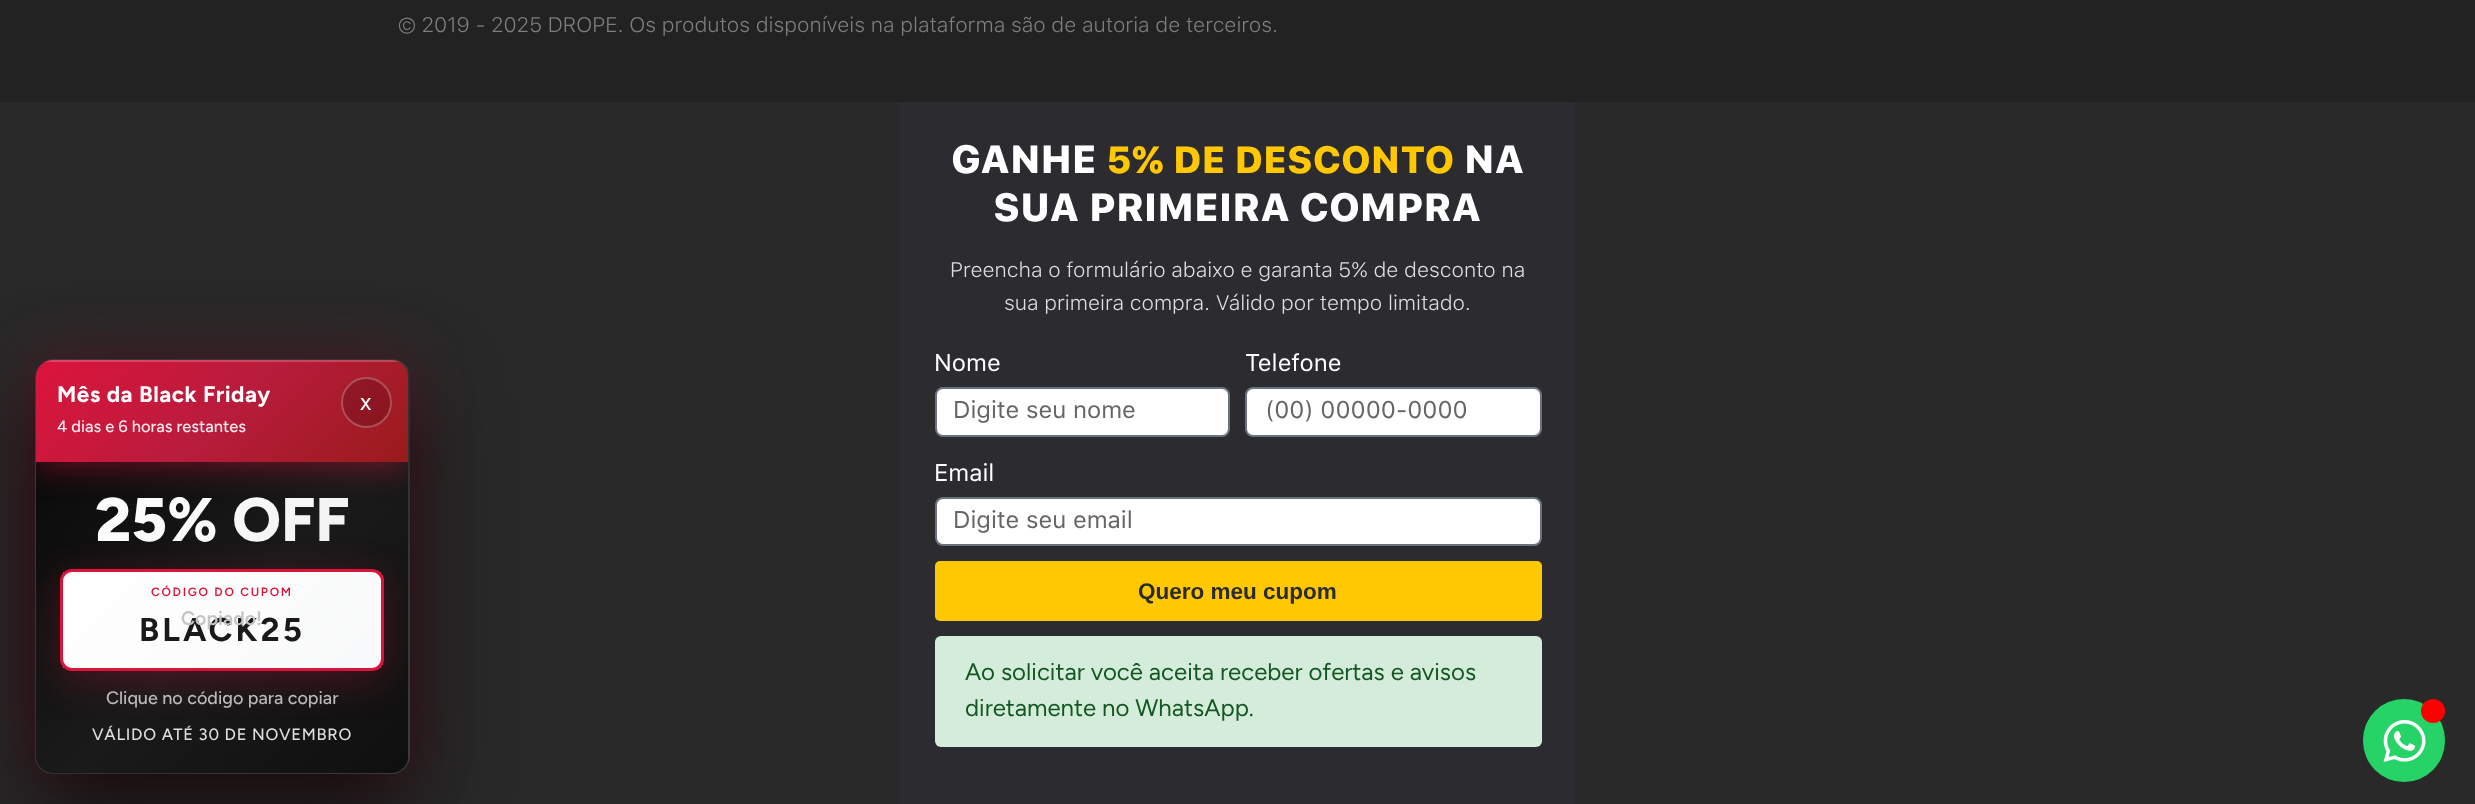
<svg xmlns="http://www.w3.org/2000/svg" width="2475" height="804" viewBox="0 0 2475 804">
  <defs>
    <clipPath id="clip1"><rect x="35" y="359" width="375" height="415" rx="18"/></clipPath>
    <linearGradient id="g1" gradientUnits="userSpaceOnUse" x1="26" y1="-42" x2="418" y2="350"><stop offset="0" stop-color="#0a0a0a"/><stop offset="0.5" stop-color="#1a1a1a"/><stop offset="1" stop-color="#0f0f0f"/></linearGradient>
    <linearGradient id="g2" gradientUnits="userSpaceOnUse" x1="-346" y1="370" x2="46" y2="762"><stop offset="0" stop-color="#0a0a0a"/><stop offset="0.5" stop-color="#1a1a1a"/><stop offset="1" stop-color="#0f0f0f"/></linearGradient>
    <linearGradient id="g3" gradientUnits="userSpaceOnUse" x1="26" y1="370" x2="418" y2="762"><stop offset="0" stop-color="#0a0a0a"/><stop offset="0.5" stop-color="#1a1a1a"/><stop offset="1" stop-color="#0f0f0f"/></linearGradient>
    <linearGradient id="g4" gradientUnits="userSpaceOnUse" x1="398" y1="370" x2="790" y2="762"><stop offset="0" stop-color="#0a0a0a"/><stop offset="0.5" stop-color="#1a1a1a"/><stop offset="1" stop-color="#0f0f0f"/></linearGradient>
    <linearGradient id="g5" gradientUnits="userSpaceOnUse" x1="26" y1="783" x2="418" y2="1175"><stop offset="0" stop-color="#0a0a0a"/><stop offset="0.5" stop-color="#1a1a1a"/><stop offset="1" stop-color="#0f0f0f"/></linearGradient>
    <linearGradient id="g6" gradientUnits="userSpaceOnUse" x1="51" y1="447" x2="393" y2="788"><stop offset="0" stop-color="#0a0a0a"/><stop offset="0.5" stop-color="#1a1a1a"/><stop offset="1" stop-color="#0f0f0f"/></linearGradient>
    <clipPath id="clip2"><rect x="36" y="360" width="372" height="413" rx="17"/></clipPath>
    <linearGradient id="g7" gradientUnits="userSpaceOnUse" x1="103" y1="293" x2="341" y2="530"><stop offset="0" stop-color="#dc143c"/><stop offset="0.5" stop-color="#b91c3c"/><stop offset="1" stop-color="#991b1b"/></linearGradient>
    <clipPath id="clip3"><rect x="36" y="360" width="372" height="413" rx="17"/></clipPath>
    <clipPath id="clip4"><rect x="60" y="569" width="324" height="102" rx="12"/></clipPath>
    <linearGradient id="g8" gradientUnits="userSpaceOnUse" x1="118" y1="516" x2="326" y2="723"><stop offset="0" stop-color="#fff"/><stop offset="1" stop-color="#f8f9fa"/></linearGradient>
    <linearGradient id="g9" gradientUnits="userSpaceOnUse" x1="126" y1="423" x2="318" y2="615"><stop offset="0" stop-color="#fff"/><stop offset="1" stop-color="#f0f0f0"/></linearGradient>
  </defs>
  <rect width="100%" height="100%" fill="#292929"/>
  <path d="M0 0h2475v102H0z" fill="#222"/>
  <rect x="35" y="359" width="375" height="415" rx="18" fill="#dc143c4d" filter="blur(30px)"/>
  <rect x="35" y="389" width="375" height="415" rx="18" fill="#000000cc" filter="blur(45px)"/>
  <g clip-path="url(#clip1)">
    <path d="M47 359h351v1H47z" fill="url(#g1)"/>
    <path d="M35 371h1v391H35z" fill="url(#g2)"/>
    <path d="M36 360h372v413H36z" fill="url(#g3)"/>
    <path d="M408 369h2v395H408z" fill="url(#g4)"/>
    <path d="M47 773h351v1H47z" fill="url(#g5)"/>
  </g>
  <rect x="36" y="360" width="373" height="413" rx="17" fill="none" stroke="#ffffff26" stroke-width="2"/>
  <path d="M36 462H408V756C408 765.5 400.5 773 391 773H53C43.5 773 36 765.5 36 756Z" fill="url(#g6)"/>
  <g clip-path="url(#clip2)">
    <path d="M36 366h372v102H36z" fill="#dc143c66" filter="blur(15px)"/>
  </g>
  <path d="M53 360H391C400.5 360 408 367.5 408 377V462H36V377C36 367.5 43.5 360 53 360Z" fill="url(#g7)"/>
  <g clip-path="url(#clip3)">
    <path d="M45 360h354v2H45z" fill="#ffffff33"/>
  </g>
  <circle cx="366.5" cy="402.5" r="25.5" fill="#00000026"/>
  <circle cx="366.5" cy="402.5" r="24.5" fill="none" stroke="#ffffff40" stroke-width="2"/>
  <g clip-path="url(#clip2)">
    <rect x="60" y="578" width="324" height="102" rx="12" fill="#dc143c40" filter="blur(19px)"/>
  </g>
  <g clip-path="url(#clip4)">
    <path d="M63 572h318v96H63z" fill="url(#g8)"/>
  </g>
  <path d="M72 573H372C377 573 381 577 381 582V581C381 576 377 572 372 572H72C67 572 63 576 63 581V582C63 577 67 573 72 573Z" fill="#ffffffcc"/>
  <rect x="61.5" y="570.5" width="321" height="99" rx="10.5" fill="none" stroke="#dc143c" stroke-width="3"/>
  <path d="M900 102h675v702H900z" fill="#2b2b30"/>
  <rect x="936" y="388" width="293" height="48" rx="7" fill="#fff" stroke="#69727d" stroke-width="2"/>
  <rect x="1246" y="388" width="295" height="48" rx="7" fill="#fff" stroke="#69727d" stroke-width="2"/>
  <rect x="936" y="498" width="605" height="47" rx="7" fill="#fff" stroke="#69727d" stroke-width="2"/>
  <rect x="935" y="561" width="607" height="60" rx="5" fill="#ffc803"/>
  <rect x="935" y="636" width="607" height="111" rx="6" fill="#d4edda"/>
  <rect x="2363" y="699" width="82" height="83" rx="41" fill="#25d366"/>
  <image x="2383" y="720" width="43" height="42" href="img/1.png"/>
  <circle cx="2433" cy="711" r="12" fill="#f00"/>
  <text x="398" y="32" font-family="SF Pro Text" font-size="21" font-weight="300" fill="#7e7e7e">© 2019 - 2025 DROPE. Os produtos disponíveis na plataforma são de autoria de terceiros.</text>
  <text x="57" y="402" font-family="Figtree" font-size="22.5" font-weight="bold" letter-spacing="0.5" fill="#fff">Mês da Black Friday</text>
  <text x="360" y="410" font-family="Figtree" font-size="24" fill="#fff">x</text>
  <text x="57" y="432" font-family="Figtree" font-size="16.5" font-weight="500" fill="#f9e8eb">4 dias e 6 horas restantes</text>
  <text x="95" y="541" font-family="Figtree" font-size="61.5" font-weight="800" fill="url(#g9)">25% OFF</text>
  <text x="151" y="596" font-family="Figtree" font-size="12" font-weight="600" letter-spacing="1.75" fill="#dc143c">CÓDIGO DO CUPOM</text>
  <text x="139" y="641" font-family="Figtree" font-size="33" font-weight="bold" letter-spacing="3" fill="#1a1a1a">BLACK25</text>
  <text x="181" y="625" font-family="Figtree" font-size="19.5" font-weight="600" fill="#c4c5c5">Copiado!</text>
  <text x="106" y="704" font-family="Figtree" font-size="18" font-weight="500" fill="#b9b9b9">Clique no código para copiar</text>
  <text x="92" y="740" font-family="Figtree" font-size="16.5" font-weight="500" letter-spacing="0.75" fill="#dedede">VÁLIDO ATÉ 30 DE NOVEMBRO</text>
  <text x="951" y="173" font-family="SF Pro Text" font-size="39" font-weight="900" fill="#fff">GANHE</text>
  <text x="1106" y="173" font-family="SF Pro Text" font-size="37.5" font-weight="900" fill="#ffc803">5% DE DESCONTO</text>
  <g font-family="SF Pro Text" font-size="39" font-weight="900" fill="#fff">
    <text x="1464" y="173">NA</text>
    <text x="993" y="221">SUA PRIMEIRA COMPRA</text>
  </g>
  <g font-family="SF Pro Text" font-size="21" font-weight="300" fill="#dedede">
    <text x="950" y="277">Preencha o formulário abaixo e garanta 5% de desconto na</text>
    <text x="1004" y="310">sua primeira compra. Válido por tempo limitado.</text>
  </g>
  <text x="934" y="371" font-family="SF Pro Text" font-size="24" fill="#fff">Nome</text>
  <text x="953" y="418" font-family="SF Pro Text" font-size="24" fill="#666">Digite seu nome</text>
  <text x="1245" y="371" font-family="SF Pro Text" font-size="24" fill="#fff">Telefone</text>
  <text x="1265" y="418" font-family="SF Pro Text" font-size="24" fill="#666">(00) 00000-0000</text>
  <text x="934" y="481" font-family="SF Pro Text" font-size="24" fill="#fff">Email</text>
  <text x="953" y="528" font-family="SF Pro Text" font-size="24" fill="#666">Digite seu email</text>
  <text x="1138" y="599" font-family="Liberation Sans" font-size="22.5" font-weight="bold" fill="#2b2b30">Quero meu cupom</text>
  <g font-family="Figtree" font-size="24" fill="#155724">
    <text x="965" y="680">Ao solicitar você aceita receber ofertas e avisos</text>
    <text x="965" y="716">diretamente no WhatsApp.</text>
  </g>
</svg>
